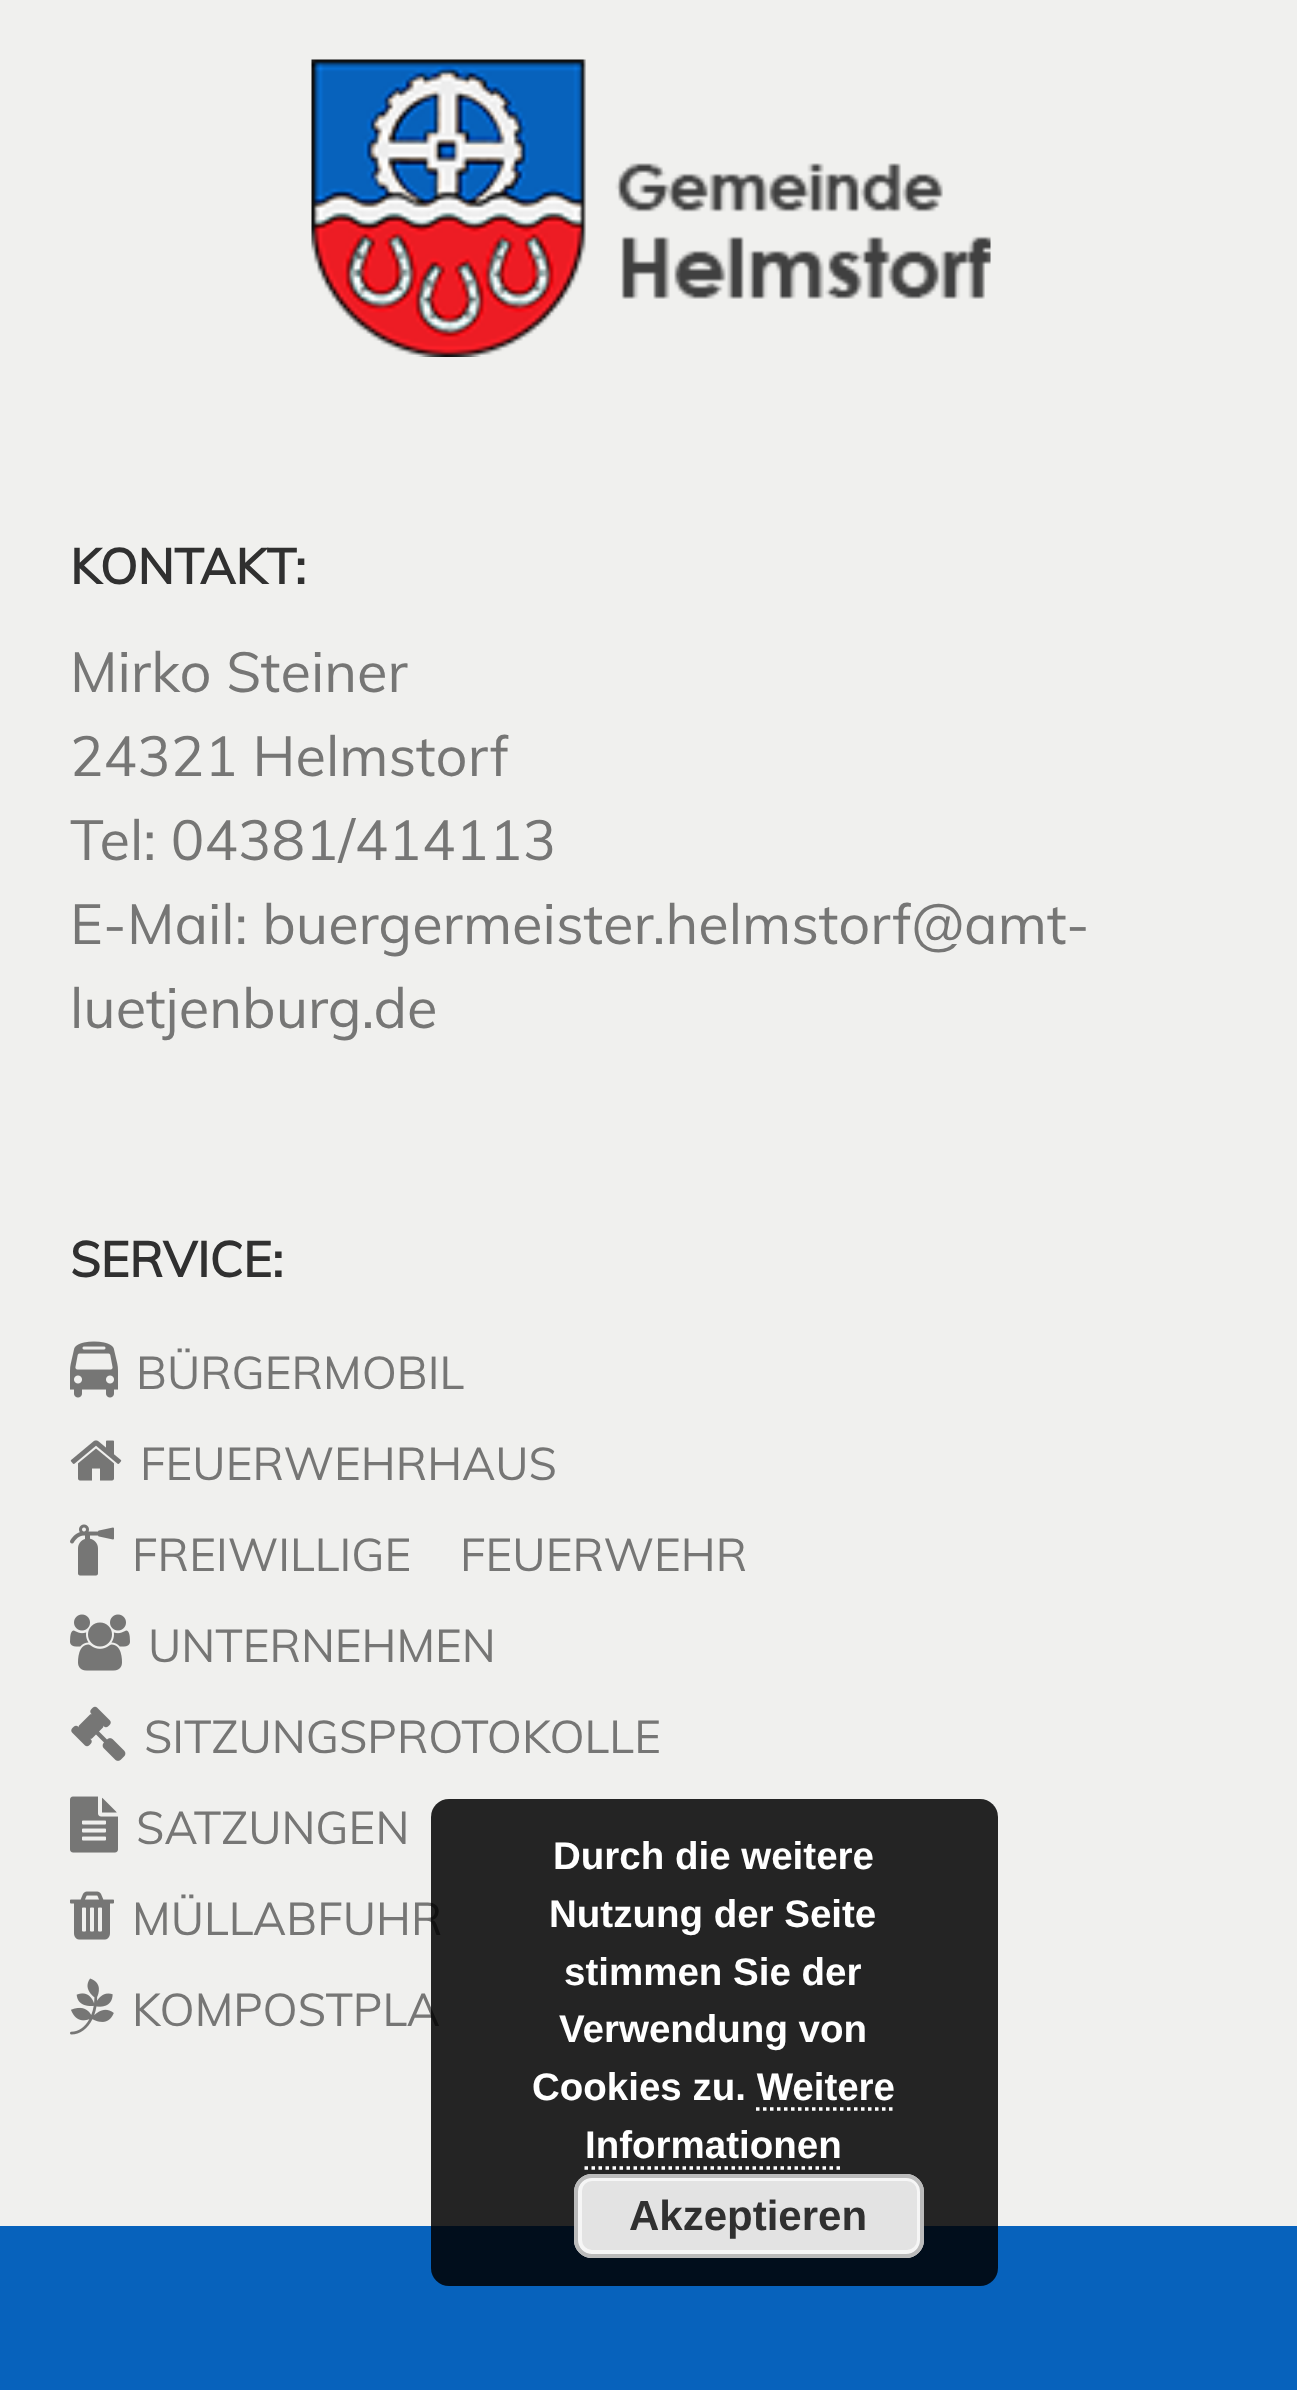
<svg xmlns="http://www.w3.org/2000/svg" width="1297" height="2390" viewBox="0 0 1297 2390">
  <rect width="100%" height="100%" fill="#f0f0ee"/>
  <image x="311" y="59" width="680" height="298" href="img/1.png"/>
  <image x="70" y="1341" width="48" height="57" href="img/2.png"/>
  <image x="70" y="1440" width="52" height="41" href="img/3.png"/>
  <image x="70" y="1524" width="44" height="52" href="img/4.png"/>
  <image x="70" y="1614" width="60" height="57" href="img/5.png"/>
  <image x="71" y="1706" width="55" height="55" href="img/6.png"/>
  <image x="70" y="1796" width="48" height="57" href="img/7.png"/>
  <image x="70" y="1891" width="44" height="49" href="img/8.png"/>
  <image x="70" y="1978" width="44" height="57" href="img/9.png"/>
  <path d="M0 2226h1297v164H0z" fill="#0762bc"/>
  <text x="70" y="584" font-family="Muli" font-size="49" font-weight="bold" fill="#303030">KONTAKT:</text>
  <g font-family="Muli" font-size="56" fill="#767675">
    <text x="70" y="692">Mirko Steiner</text>
    <text x="70" y="776">24321 Helmstorf</text>
    <text x="70" y="860">Tel: 04381/414113</text>
    <text x="70" y="944">E-Mail: buergermeister.helmstorf@amt-</text>
    <text x="70" y="1028">luetjenburg.de</text>
  </g>
  <text x="70" y="1277" font-family="Muli" font-size="49" font-weight="bold" fill="#303030">SERVICE:</text>
  <g font-family="Muli" font-size="45.5" fill="#767675">
    <text x="136" y="1389">BÜRGERMOBIL</text>
    <text x="140" y="1480">FEUERWEHRHAUS</text>
    <text x="132" y="1571">FREIWILLIGE</text>
    <text x="460" y="1571">FEUERWEHR</text>
    <text x="148" y="1662">UNTERNEHMEN</text>
    <text x="144" y="1753">SITZUNGSPROTOKOLLE</text>
    <text x="136" y="1844">SATZUNGEN</text>
    <text x="132" y="1935">MÜLLABFUHR</text>
    <text x="132" y="2026">KOMPOSTPLA</text>
  </g>
  <rect x="431" y="1799" width="567" height="487" rx="18" fill="#000000d9"/>
  <g font-family="Liberation Sans" font-size="38.5" font-weight="bold" fill="#fff">
    <text x="553" y="1869">Durch die weitere</text>
    <text x="549" y="1927">Nutzung der Seite</text>
    <text x="564" y="1985">stimmen Sie der</text>
    <text x="559" y="2042">Verwendung von</text>
    <text x="532" y="2100">Cookies zu. Weitere</text>
    <text x="585" y="2158">Informationen</text>
  </g>
  <path d="M756 2109H896" fill="none" stroke="#fff" stroke-width="3.5" stroke-dasharray="3.5 3.5"/>
  <path d="M584.5 2168H840" fill="none" stroke="#fff" stroke-width="3.5" stroke-dasharray="3.5 3.5"/>
  <rect x="574" y="2174" width="350" height="84" rx="18" fill="#e3e3e3"/>
  <rect x="580" y="2179" width="339" height="73" rx="12" fill="none" stroke="#f6f6f6" stroke-width="4"/>
  <rect x="576" y="2176" width="346" height="80" rx="16" fill="none" stroke="#bbb" stroke-width="4"/>
  <text x="629" y="2230" font-family="Liberation Sans" font-size="42" font-weight="bold" fill="#303030">Akzeptieren</text>
</svg>
